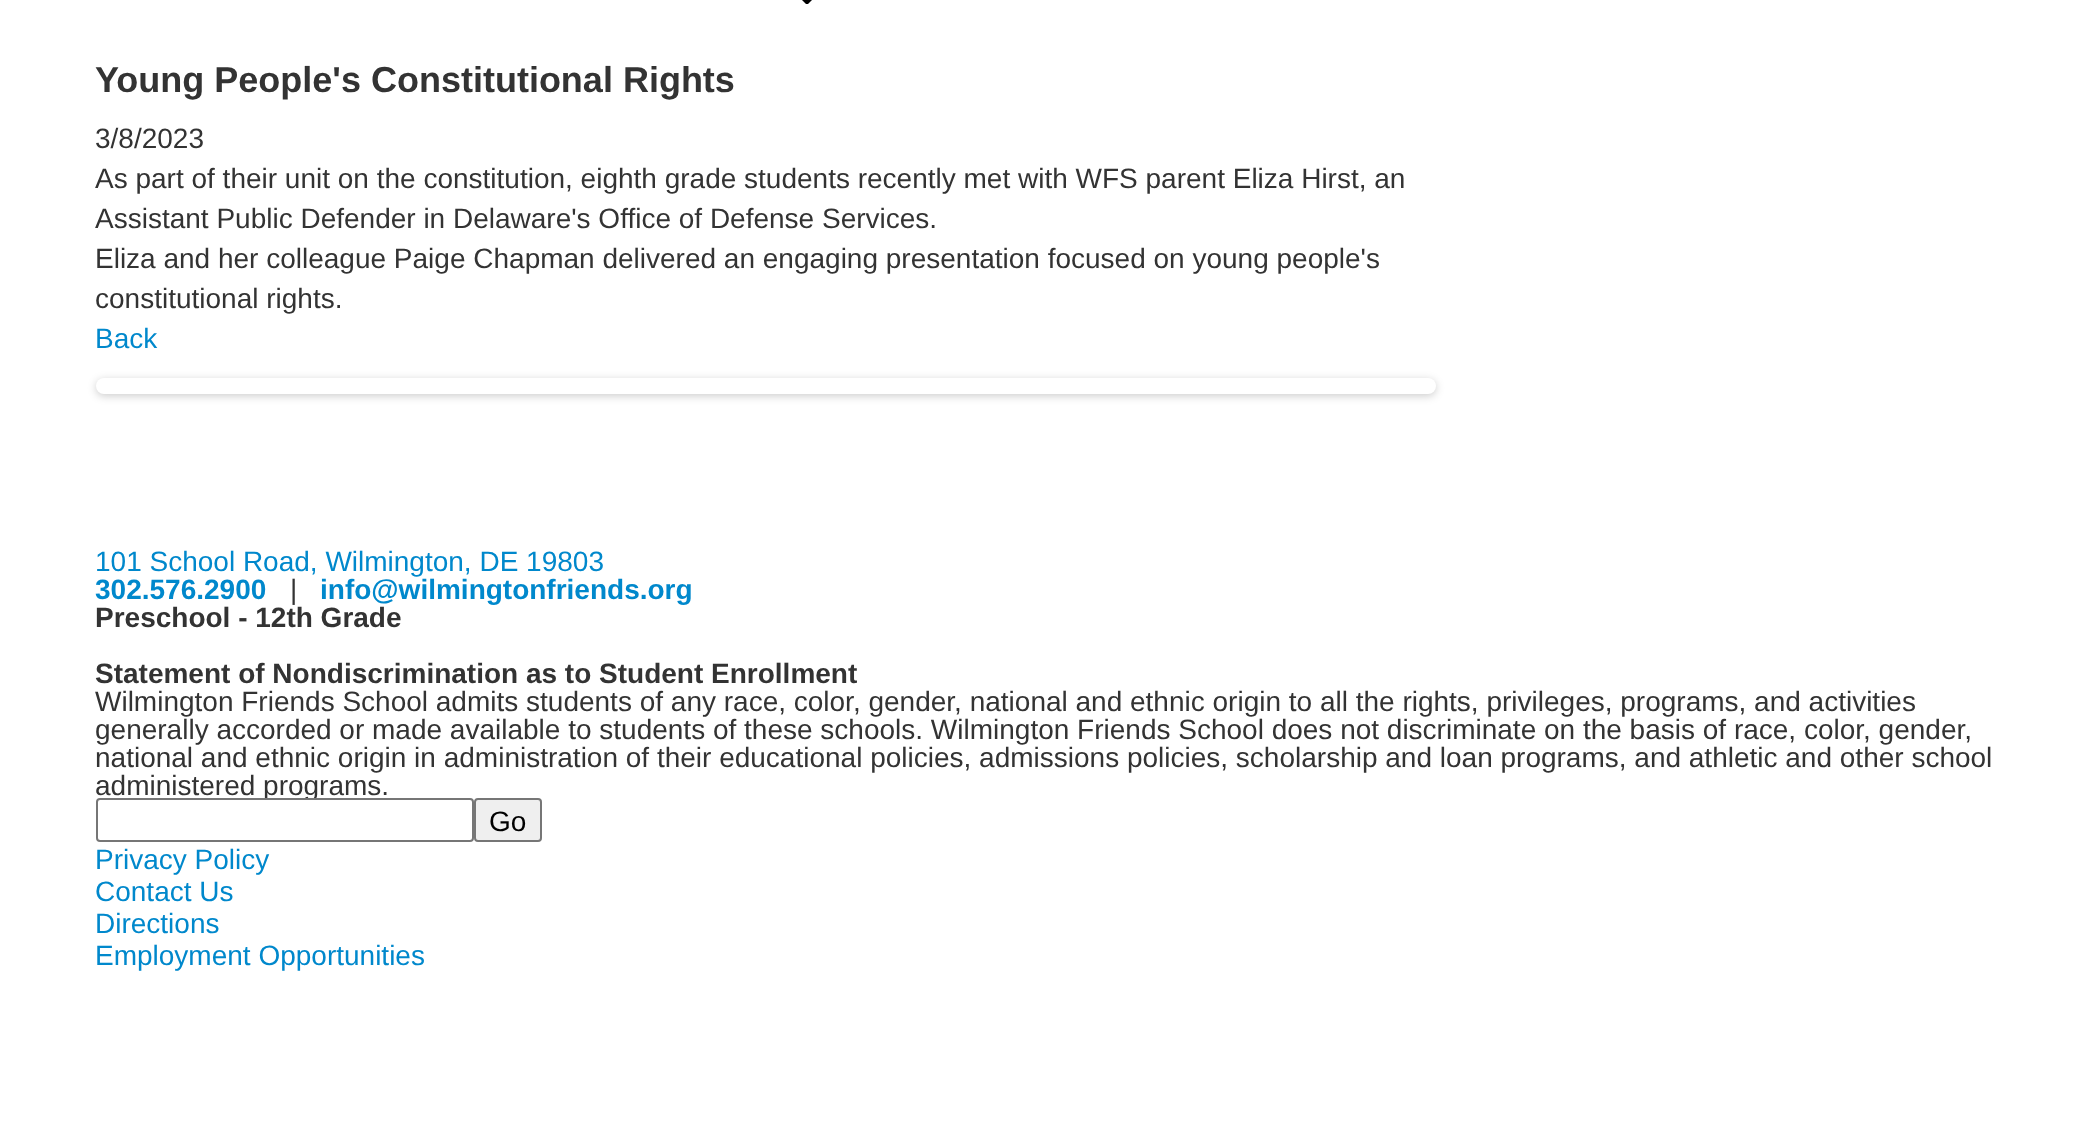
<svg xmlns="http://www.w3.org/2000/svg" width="2090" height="1124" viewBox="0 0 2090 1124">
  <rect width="100%" height="100%" fill="#fff"/>
  <path d="M796-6H818L808 4H806Z" fill="#000"/>
  <rect x="96" y="380" width="1340" height="16" rx="8" fill="#00000033" filter="blur(4px)"/>
  <rect x="96" y="378" width="1340" height="16" rx="8" fill="#fff"/>
  <rect x="475" y="799" width="66" height="42" rx="3" fill="#efefef" stroke="#767676" stroke-width="2"/>
  <text x="95" y="92" font-family="Liberation Sans" font-size="36" font-weight="bold" fill="#333">Young People's Constitutional Rights</text>
  <g font-family="Liberation Sans" font-size="28" fill="#333">
    <text x="95" y="148">3/8/2023</text>
    <text x="95" y="188">As part of their unit on the constitution, eighth grade students recently met with WFS parent Eliza Hirst, an</text>
    <text x="95" y="228">Assistant Public Defender in Delaware's Office of Defense Services.</text>
    <text x="95" y="268">Eliza and her colleague Paige Chapman delivered an engaging presentation focused on young people's</text>
    <text x="95" y="308">constitutional rights.</text>
  </g>
  <g font-family="Liberation Sans" font-size="28" fill="#08c">
    <text x="95" y="348">Back</text>
    <text x="95" y="571">101 School Road, Wilmington, DE 19803</text>
  </g>
  <text x="95" y="599" font-family="Liberation Sans" font-size="28" font-weight="bold" fill="#08c">302.576.2900</text>
  <text x="290" y="599" font-family="Liberation Sans" font-size="28" fill="#333">|</text>
  <text x="320" y="599" font-family="Liberation Sans" font-size="28" font-weight="bold" fill="#08c">info@wilmingtonfriends.org</text>
  <g font-family="Liberation Sans" font-size="28" font-weight="bold" fill="#333">
    <text x="95" y="627">Preschool - 12th Grade</text>
    <text x="95" y="683">Statement of Nondiscrimination as to Student Enrollment</text>
  </g>
  <g font-family="Liberation Sans" font-size="28" fill="#333">
    <text x="95" y="711">Wilmington Friends School admits students of any race, color, gender, national and ethnic origin to all the rights, privileges, programs, and activities</text>
    <text x="95" y="739">generally accorded or made available to students of these schools. Wilmington Friends School does not discriminate on the basis of race, color, gender,</text>
    <text x="95" y="767">national and ethnic origin in administration of their educational policies, admissions policies, scholarship and loan programs, and athletic and other school</text>
    <text x="95" y="795">administered programs.</text>
  </g>
  <rect x="97" y="799" width="376" height="42" rx="3" fill="#fff" stroke="#767676" stroke-width="2"/>
  <text x="489" y="831" font-family="Liberation Sans" font-size="28" fill="#000">Go</text>
  <g font-family="Liberation Sans" font-size="28" fill="#08c">
    <text x="95" y="869">Privacy Policy</text>
    <text x="95" y="901">Contact Us</text>
    <text x="95" y="933">Directions</text>
    <text x="95" y="965">Employment Opportunities</text>
  </g>
</svg>
